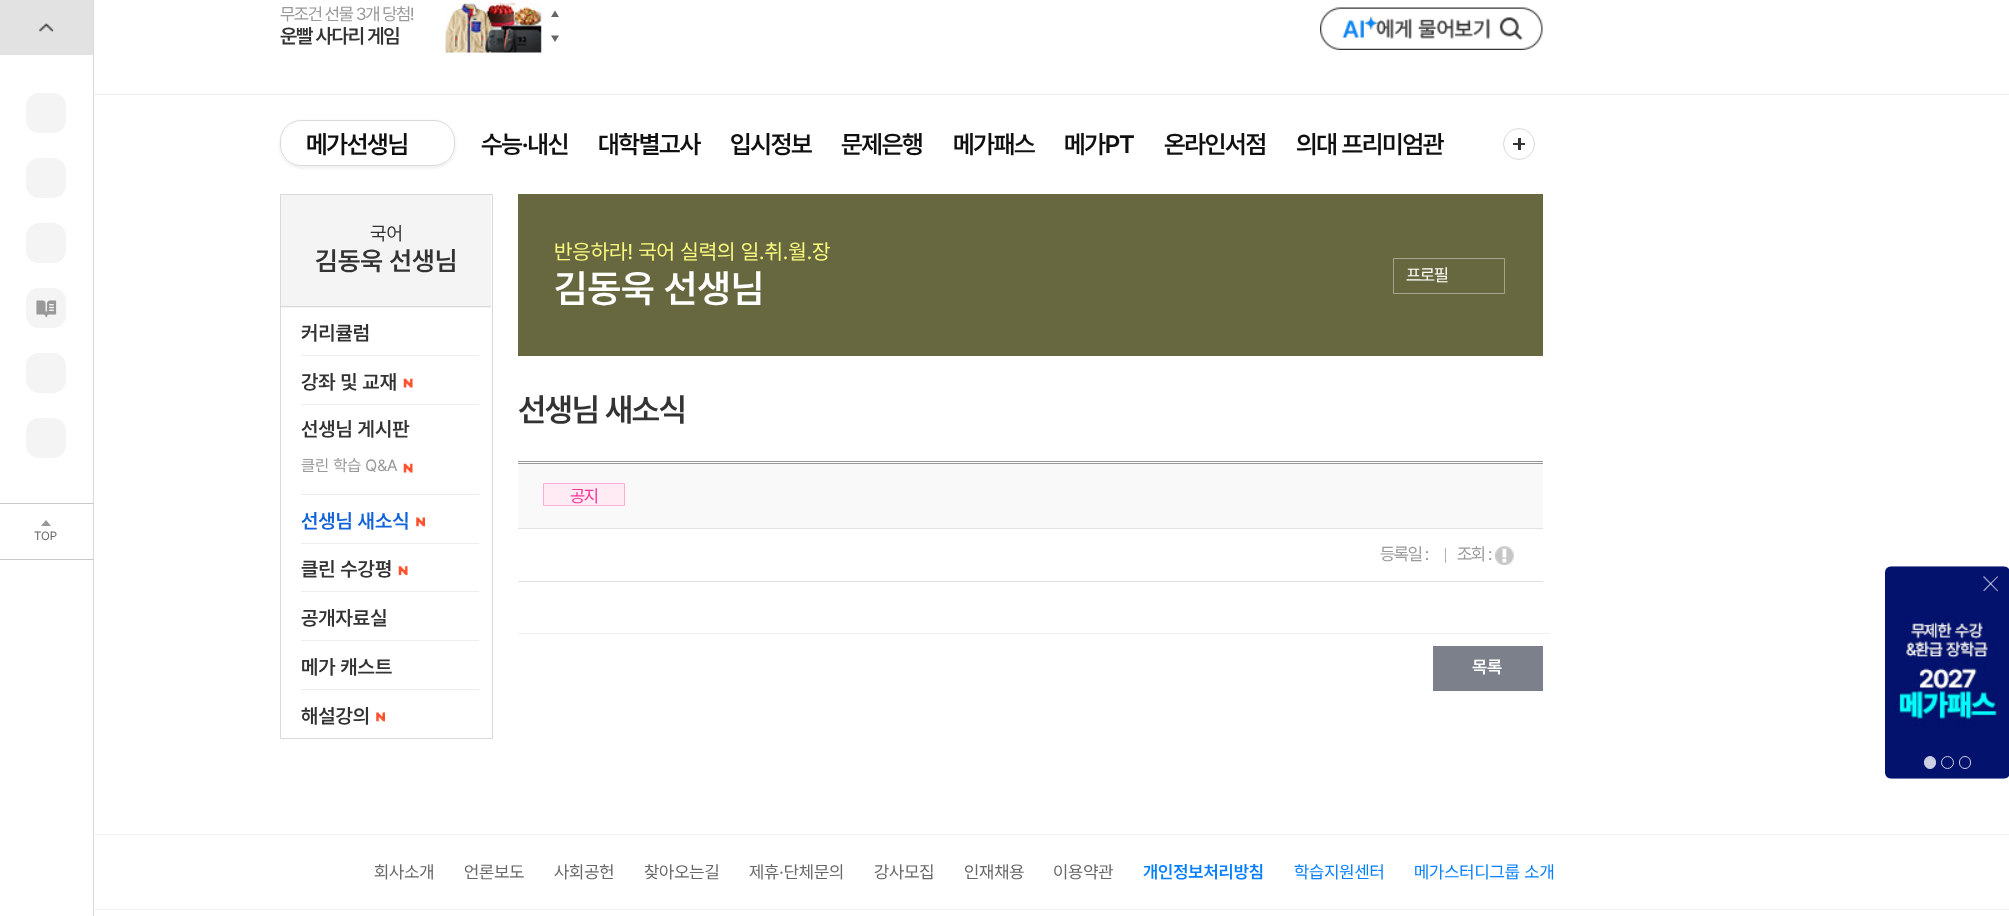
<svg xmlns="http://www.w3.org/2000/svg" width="2009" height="916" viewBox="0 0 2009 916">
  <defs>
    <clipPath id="clip1"><path d="M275 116H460V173H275ZM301 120H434C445.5 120 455 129.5 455 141V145C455 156.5 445.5 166 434 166H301C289.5 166 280 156.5 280 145V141C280 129.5 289.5 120 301 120Z" clip-rule="evenodd"/></clipPath>
  </defs>
  <rect width="100%" height="100%" fill="#fff"/>
  <path d="M94 94h1915v1H94z" fill="#eee"/>
  <image x="445" y="2" width="97" height="51" href="img/1.png"/>
  <path d="M559 17H551L555 10.5ZM551 35.5H559L555 42Z" fill="#666"/>
  <image x="1320" y="7" width="223" height="43" href="img/2.png"/>
  <g clip-path="url(#clip1)">
    <rect x="279" y="120" width="177" height="49" rx="23" fill="#f3f3f3" filter="blur(1px)"/>
  </g>
  <rect x="280.5" y="120.5" width="174" height="45" rx="20.5" fill="none" stroke="#dadada"/>
  <circle cx="1519" cy="144" r="15.5" fill="none" stroke="#dadada"/>
  <path d="M1518 138h3v12H1518z" fill="#333"/>
  <path d="M1513 143h12v2H1513z" fill="#333"/>
  <path d="M93 0h1v916H93z" fill="#dadada"/>
  <path d="M0 0h93v55H0z" fill="#e2e2e2"/>
  <image x="39" y="23" width="15" height="9" href="img/3.png"/>
  <rect x="26" y="93" width="40" height="40" rx="13" fill="#f4f4f4"/>
  <rect x="26" y="158" width="40" height="40" rx="13" fill="#f4f4f4"/>
  <rect x="26" y="223" width="40" height="40" rx="13" fill="#f4f4f4"/>
  <rect x="26" y="288" width="40" height="40" rx="13" fill="#f4f4f4"/>
  <image x="36" y="300" width="21" height="18" href="img/4.png"/>
  <rect x="26" y="353" width="40" height="40" rx="13" fill="#f4f4f4"/>
  <rect x="26" y="418" width="40" height="40" rx="13" fill="#f4f4f4"/>
  <path d="M0 503h93v1H0z" fill="#c9c9c9"/>
  <path d="M0 559h93v1H0z" fill="#c9c9c9"/>
  <path d="M51 526H41L46 520Z" fill="#999"/>
  <path d="M280.5 194.5h212v544H280.5z" fill="none" stroke="#d9d9d9"/>
  <path d="M281 195h210v113H281z" fill="#f4f4f4"/>
  <path d="M281 306h210v1H281z" fill="#d9d9d9"/>
  <path d="M301 355h178v1H301z" fill="#ededed"/>
  <path d="M301 404h178v1H301z" fill="#ededed"/>
  <image x="403" y="378" width="10" height="10" href="img/5.png"/>
  <path d="M301 494h178v1H301z" fill="#ededed"/>
  <image x="403" y="463" width="10" height="10" href="img/5.png"/>
  <path d="M301 543h178v1H301z" fill="#ededed"/>
  <image x="416" y="517" width="9" height="10" href="img/6.png"/>
  <path d="M301 591h178v1H301z" fill="#ededed"/>
  <image x="398" y="566" width="10" height="9" href="img/7.png"/>
  <path d="M301 640h178v1H301z" fill="#ededed"/>
  <path d="M301 689h178v1H301z" fill="#ededed"/>
  <image x="376" y="712" width="9" height="10" href="img/6.png"/>
  <path d="M518 194h1025v162H518z" fill="#686840"/>
  <path d="M1393.5 258.5h111v35H1393.5z" fill="none" stroke="#a4a48c"/>
  <path d="M518 461h1025v1H518z" fill="#999"/>
  <path d="M518 464h1025v64H518z" fill="#f9f9f9"/>
  <path d="M518 463h1025v1H518z" fill="#999"/>
  <path d="M518 528h1025v1H518z" fill="#e2e2e2"/>
  <path d="M543.5 483.5h81v22H543.5z" fill="#feebf4" stroke="#ffadd6"/>
  <path d="M518 581h1025v1H518z" fill="#e2e2e2"/>
  <path d="M1445 548h1v15H1445z" fill="#b4b4b4"/>
  <image x="1495" y="546" width="19" height="19" href="img/8.png"/>
  <path d="M518 633h1032v1H518z" fill="#efefef"/>
  <path d="M1433 646h110v45H1433z" fill="#7b808a"/>
  <image x="1885" y="566" width="124" height="213" href="img/9.png"/>
  <path d="M1997.5 576L1998 577L1984.5 591L1983 590.5Z" fill="#9aa0c5"/>
  <path d="M1983 577L1984 576L1998 590.5L1997.5 591.5Z" fill="#ffffff99"/>
  <rect x="1924.5" y="756.5" width="11" height="12" rx="5.5" fill="#cdd0e2" stroke="#cdd0e2"/>
  <circle cx="1947.5" cy="762.5" r="6" fill="none" stroke="#cdd0e2"/>
  <rect x="1959.5" y="756.5" width="11" height="12" rx="5.5" fill="none" stroke="#cdd0e2"/>
  <path d="M94 834h1915v1H94z" fill="#f2f2f2"/>
  <path d="M94 909h1915v1H94z" fill="#f2f2f2"/>
  <text x="280" y="20" font-family="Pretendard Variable" font-size="17.5" letter-spacing="-1.25" fill="#999">무조건 선물 3개 당첨!</text>
  <text x="280" y="43" font-family="Pretendard Variable" font-size="20" font-weight="600" letter-spacing="-1.25" fill="#333">운빨 사다리 게임</text>
  <g font-family="Pretendard Variable" font-size="25" font-weight="600" letter-spacing="-1.25" fill="#101010">
    <text x="306" y="153">메가선생님</text>
    <text x="481" y="153">수능·내신</text>
    <text x="598" y="153">대학별고사</text>
    <text x="730" y="153">입시정보</text>
    <text x="841" y="153">문제은행</text>
    <text x="953" y="153">메가패스</text>
    <text x="1064" y="153">메가PT</text>
    <text x="1164" y="153">온라인서점</text>
    <text x="1296" y="153">의대 프리미엄관</text>
  </g>
  <text x="34" y="540" font-family="Pretendard Variable" font-size="12" fill="#666">TOP</text>
  <text x="370" y="240" font-family="Pretendard Variable" font-size="19" fill="#333">국어</text>
  <text x="315" y="270" font-family="Pretendard Variable" font-size="26.25" font-weight="600" fill="#333">김동욱 선생님</text>
  <g font-family="Pretendard Variable" font-size="20" font-weight="600" fill="#333">
    <text x="301" y="340">커리큘럼</text>
    <text x="301" y="389">강좌 및 교재</text>
    <text x="301" y="436">선생님 게시판</text>
  </g>
  <text x="301" y="471" font-family="Pretendard Variable" font-size="16.25" fill="#999">클린 학습 Q&amp;A</text>
  <text x="301" y="528" font-family="Pretendard Variable" font-size="20" font-weight="600" fill="#1162db">선생님 새소식</text>
  <g font-family="Pretendard Variable" font-size="20" font-weight="600" fill="#333">
    <text x="301" y="576">클린 수강평</text>
    <text x="301" y="625">공개자료실</text>
    <text x="301" y="674">메가 캐스트</text>
    <text x="301" y="723">해설강의</text>
  </g>
  <text x="554" y="259" font-family="Pretendard Variable" font-size="21.25" fill="#fafb7e">반응하라! 국어 실력의 일.취.월.장</text>
  <text x="554" y="302" font-family="Pretendard Variable" font-size="38.75" font-weight="600" fill="#fff">김동욱 선생님</text>
  <text x="1406" y="281" font-family="Pretendard Variable" font-size="17.5" letter-spacing="-1.25" fill="#fff">프로필</text>
  <text x="518" y="421" font-family="Pretendard Variable" font-size="32.5" font-weight="600" letter-spacing="-1.25" fill="#333">선생님 새소식</text>
  <text x="570" y="502" font-family="Pretendard Variable" font-size="17.5" letter-spacing="-1.25" fill="#f93295">공지</text>
  <g font-family="Pretendard Variable" font-size="17.5" letter-spacing="-1.25" fill="#999">
    <text x="1380" y="560">등록일 :</text>
    <text x="1457" y="560">조회 :</text>
  </g>
  <text x="1472" y="673" font-family="Pretendard Variable" font-size="17.5" font-weight="600" fill="#fff">목록</text>
  <g font-family="Pretendard Variable" font-size="17.5" fill="#666">
    <text x="374" y="878">회사소개</text>
    <text x="464" y="878">언론보도</text>
    <text x="554" y="878">사회공헌</text>
    <text x="644" y="878">찾아오는길</text>
    <text x="749" y="878">제휴·단체문의</text>
    <text x="874" y="878">강사모집</text>
    <text x="964" y="878">인재채용</text>
    <text x="1053" y="878">이용약관</text>
  </g>
  <text x="1143" y="878" font-family="Pretendard Variable" font-size="17.5" font-weight="600" fill="#047fff">개인정보처리방침</text>
  <g font-family="Pretendard Variable" font-size="17.5" fill="#047fff">
    <text x="1294" y="878">학습지원센터</text>
    <text x="1414" y="878">메가스터디그룹 소개</text>
  </g>
</svg>
